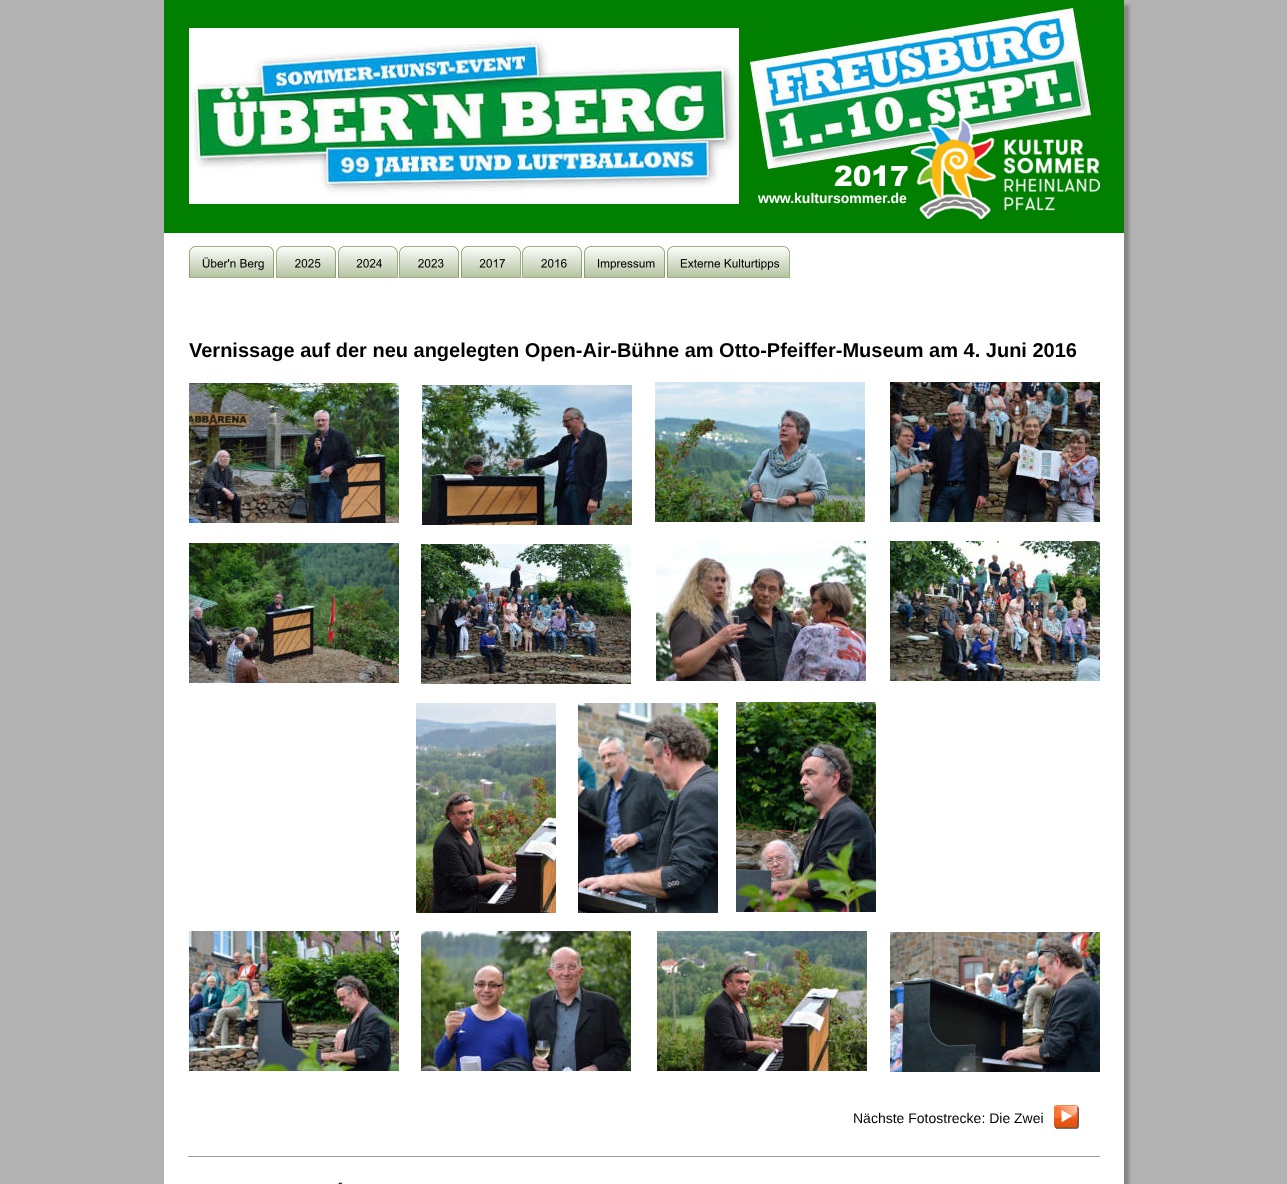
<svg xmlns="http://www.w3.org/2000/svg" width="1287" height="1184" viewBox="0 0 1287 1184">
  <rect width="100%" height="100%" fill="#b2b2b2"/>
  <path d="M169 5h960v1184H169z" fill="#00000040" filter="blur(1.5px)"/>
  <path d="M164 233h960v951H164z" fill="#fff"/>
  <path d="M164 0h960v233H164z" fill="#007f01"/>
  <image x="189" y="28" width="550" height="176" href="img/1.png"/>
  <image x="750" y="8" width="341" height="161" href="img/2.png"/>
  <image x="911" y="118" width="189" height="101" href="img/3.png"/>
  <image x="189" y="383" width="210" height="140" href="img/4.png"/>
  <image x="422" y="385" width="210" height="140" href="img/5.png"/>
  <image x="655" y="382" width="210" height="140" href="img/6.png"/>
  <image x="890" y="382" width="210" height="140" href="img/7.png"/>
  <image x="189" y="543" width="210" height="140" href="img/8.png"/>
  <image x="421" y="544" width="210" height="140" href="img/9.png"/>
  <image x="656" y="541" width="210" height="140" href="img/10.png"/>
  <image x="890" y="541" width="210" height="140" href="img/11.png"/>
  <image x="416" y="703" width="140" height="210" href="img/12.png"/>
  <image x="578" y="703" width="140" height="210" href="img/13.png"/>
  <image x="736" y="702" width="140" height="210" href="img/14.png"/>
  <image x="189" y="931" width="210" height="140" href="img/15.png"/>
  <image x="421" y="931" width="210" height="140" href="img/16.png"/>
  <image x="657" y="931" width="210" height="140" href="img/17.png"/>
  <image x="890" y="932" width="210" height="140" href="img/18.png"/>
  <image x="1054" y="1105" width="25" height="24" href="img/19.png"/>
  <image x="188" y="1156" width="912" height="1" href="img/20.png"/>
  <image x="189" y="246" width="85" height="32" href="img/21.png"/>
  <image x="276" y="246" width="60" height="32" href="img/22.png"/>
  <image x="338" y="246" width="60" height="32" href="img/23.png"/>
  <image x="399" y="246" width="60" height="32" href="img/24.png"/>
  <image x="461" y="246" width="60" height="32" href="img/25.png"/>
  <image x="522" y="246" width="60" height="32" href="img/26.png"/>
  <image x="584" y="246" width="81" height="32" href="img/27.png"/>
  <image x="667" y="246" width="123" height="32" href="img/28.png"/>
  <text x="834" y="186" font-family="Arial" font-size="28" font-weight="900" fill="#fff">2017</text>
  <text x="758" y="203" font-family="Liberation Sans" font-size="14" font-weight="bold" fill="#fff">www.kultursommer.de</text>
  <text x="189" y="357" font-family="Liberation Sans" font-size="20" font-weight="bold" fill="#000">Vernissage auf der neu angelegten Open-Air-Bühne am Otto-Pfeiffer-Museum am 4. Juni 2016</text>
  <g font-family="Liberation Sans" font-size="14" fill="#000">
    <text x="853" y="1123">Nächste Fotostrecke: Die Zwei</text>
    <text x="338" y="1187">-</text>
  </g>
</svg>
